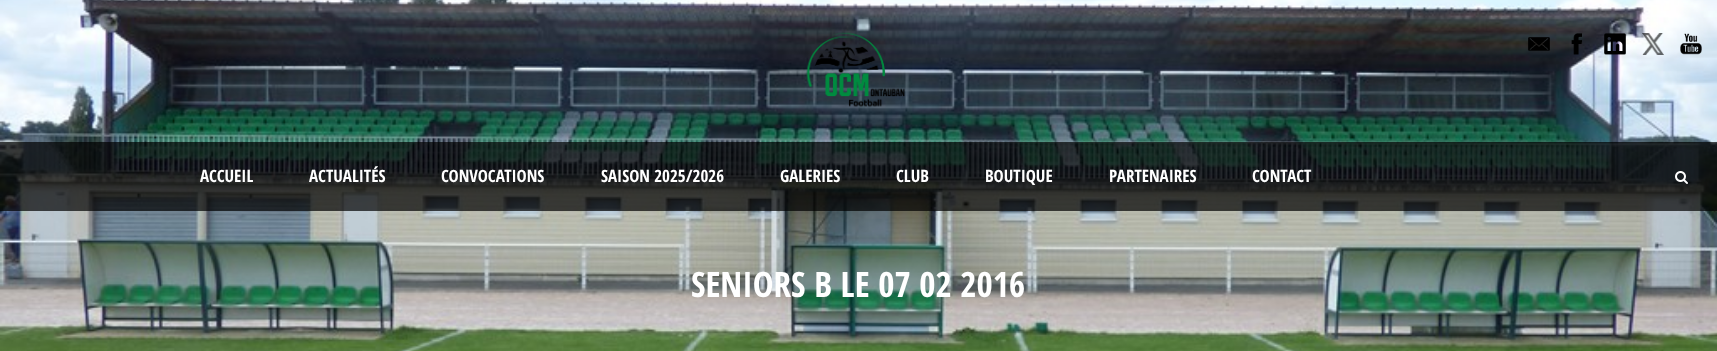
<svg xmlns="http://www.w3.org/2000/svg" width="1717" height="351" viewBox="0 0 1717 351">
  <rect width="100%" height="100%" fill="#fff"/>
  <image x="0" y="0" width="1717" height="351" href="img/1.png"/>
  <image x="1528" y="37" width="22" height="14" href="img/2.png"/>
  <image x="1571" y="33" width="11" height="22" href="img/3.png"/>
  <image x="1604" y="33" width="22" height="22" href="img/4.png"/>
  <image x="1642" y="33" width="22" height="22" href="img/5.png"/>
  <image x="1680" y="33" width="22" height="22" href="img/6.png"/>
  <image x="806" y="32" width="99" height="75" href="img/7.png"/>
  <path d="M0 142h1717v69H0z" fill="#000000b3"/>
  <image x="1675" y="171" width="13" height="13" href="img/8.png"/>
  <g font-family="Open Sans Condensed" font-size="17" font-weight="bold" fill="#fff">
    <text x="200" y="182">ACCUEIL</text>
    <text x="309" y="182">ACTUALITÉS</text>
    <text x="441" y="182">CONVOCATIONS</text>
    <text x="601" y="182">SAISON 2025/2026</text>
    <text x="780" y="182">GALERIES</text>
    <text x="896" y="182">CLUB</text>
    <text x="985" y="182">BOUTIQUE</text>
    <text x="1109" y="182">PARTENAIRES</text>
    <text x="1252" y="182">CONTACT</text>
  </g>
  <text x="691" y="297" font-family="Open Sans Condensed" font-size="35" font-weight="bold" fill="#fff">SENIORS B LE 07 02 2016</text>
</svg>
